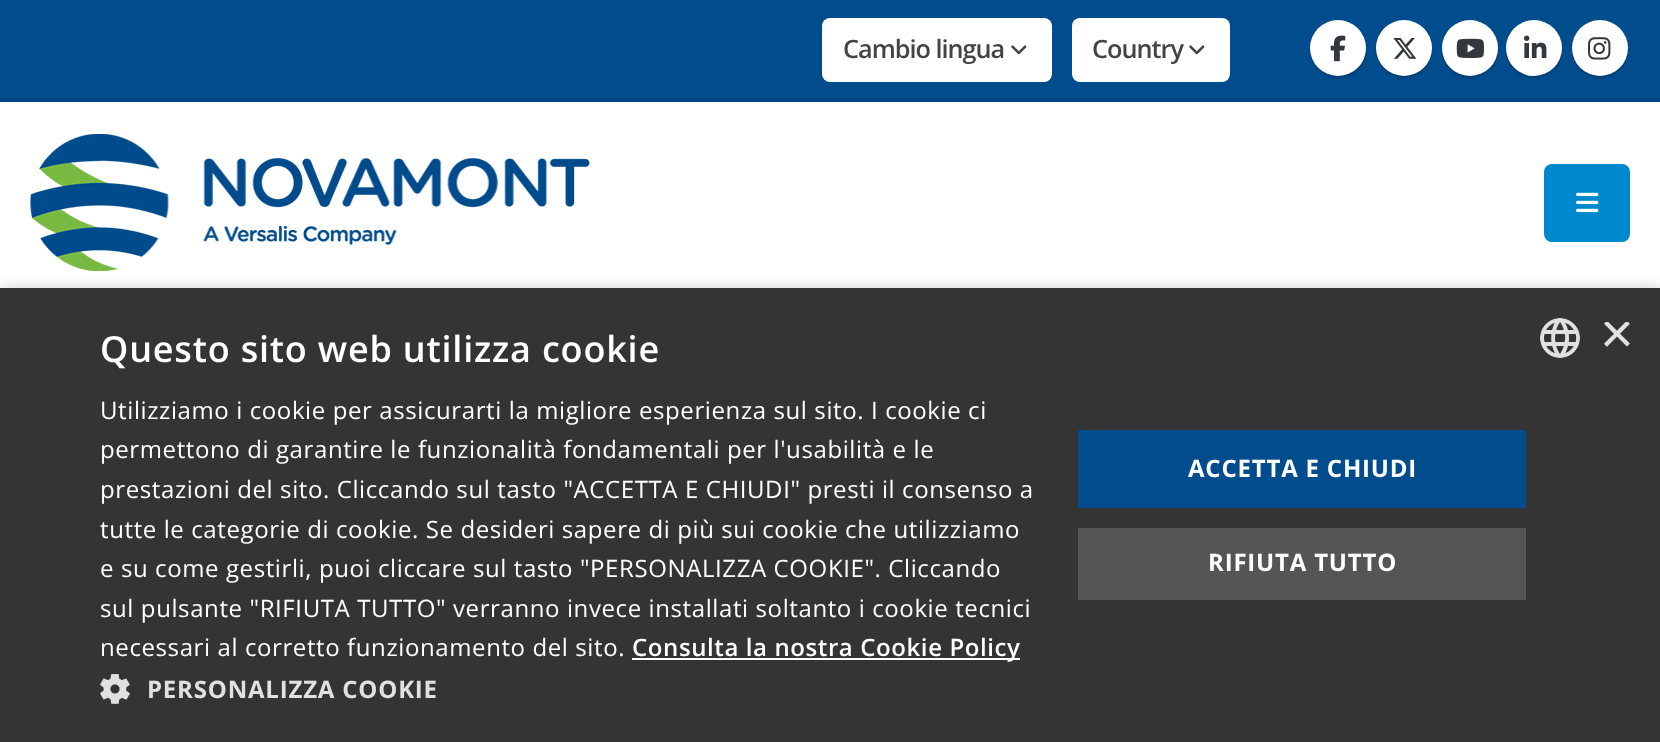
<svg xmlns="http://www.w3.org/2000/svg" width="1660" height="742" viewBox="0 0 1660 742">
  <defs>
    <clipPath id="clip1"><path d="M1600 322h30v30H1600z"/></clipPath>
  </defs>
  <rect width="100%" height="100%" fill="#fff"/>
  <path d="M0 0h1660v98H0z" fill="#004c8c"/>
  <path d="M0 98h1660v4H0z" fill="#004784"/>
  <rect x="822" y="18" width="230" height="64" rx="8" fill="#fff"/>
  <image x="1011" y="45" width="16" height="10" href="img/1.png"/>
  <rect x="1072" y="18" width="158" height="64" rx="8" fill="#fff"/>
  <image x="1189" y="45" width="16" height="10" href="img/1.png"/>
  <rect x="1310" y="22" width="56" height="56" rx="28" fill="#00000033" filter="blur(1px)"/>
  <circle cx="1338" cy="48" r="28" fill="#fff"/>
  <image x="1330" y="35" width="16" height="27" href="img/2.png"/>
  <rect x="1376" y="22" width="56" height="56" rx="28" fill="#00000033" filter="blur(1px)"/>
  <circle cx="1404" cy="48" r="28" fill="#fff"/>
  <image x="1393" y="38" width="24" height="21" href="img/3.png"/>
  <rect x="1442" y="22" width="56" height="56" rx="28" fill="#00000033" filter="blur(1px)"/>
  <circle cx="1470" cy="48" r="28" fill="#fff"/>
  <image x="1456" y="38" width="29" height="20" href="img/4.png"/>
  <rect x="1506" y="22" width="56" height="56" rx="28" fill="#00000033" filter="blur(1px)"/>
  <circle cx="1534" cy="48" r="28" fill="#fff"/>
  <image x="1524" y="35" width="23" height="23" href="img/5.png"/>
  <rect x="1572" y="22" width="56" height="56" rx="28" fill="#00000033" filter="blur(1px)"/>
  <circle cx="1600" cy="48" r="28" fill="#fff"/>
  <image x="1588" y="37" width="23" height="23" href="img/6.png"/>
  <image x="30" y="134" width="560" height="137" href="img/7.png"/>
  <rect x="1544" y="164" width="86" height="78" rx="8" fill="#08c"/>
  <image x="1576" y="192" width="23" height="20" href="img/8.png"/>
  <path d="M2 292h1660v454H2z" fill="#00000059" filter="blur(8px)"/>
  <path d="M0 288h1660v454H0z" fill="#343434"/>
  <path d="M632 658h388v2H632z" fill="#fff"/>
  <image x="100" y="674" width="30" height="30" href="img/9.png"/>
  <path d="M1078 430h448v78H1078z" fill="#004c8c"/>
  <path d="M1078 528h448v72H1078z" fill="#555"/>
  <image x="1540" y="318" width="40" height="40" href="img/10.png"/>
  <g font-family="Open Sans" font-size="25.25" font-weight="600" letter-spacing="-1" fill="#444">
    <text x="843" y="58">Cambio lingua</text>
    <text x="1092" y="58">Country</text>
  </g>
  <text x="100" y="362" font-family="Open Sans" font-size="36" font-weight="600" letter-spacing="0.8" fill="#fff">Questo sito web utilizza cookie</text>
  <g font-family="Open Sans" font-size="24" letter-spacing="0.6" fill="#fff">
    <text x="100" y="419">Utilizziamo i cookie per assicurarti la migliore esperienza sul sito. I cookie ci</text>
    <text x="100" y="458">permettono di garantire le funzionalità fondamentali per l'usabilità e le</text>
    <text x="100" y="498">prestazioni del sito. Cliccando sul tasto "ACCETTA E CHIUDI" presti il consenso a</text>
    <text x="100" y="538">tutte le categorie di cookie. Se desideri sapere di più sui cookie che utilizziamo</text>
    <text x="100" y="577">e su come gestirli, puoi cliccare sul tasto "PERSONALIZZA COOKIE". Cliccando</text>
    <text x="100" y="617">sul pulsante "RIFIUTA TUTTO" verranno invece installati soltanto i cookie tecnici</text>
    <text x="100" y="656">necessari al corretto funzionamento del sito.</text>
  </g>
  <text x="632" y="656" font-family="Open Sans" font-size="24" font-weight="600" letter-spacing="0.6" fill="#fff">Consulta la nostra Cookie Policy</text>
  <text x="147" y="698" font-family="Open Sans" font-size="24" font-weight="bold" letter-spacing="0.8" fill="#e1e1e1">PERSONALIZZA COOKIE</text>
  <g font-family="Open Sans" font-size="24" font-weight="bold" letter-spacing="0.8" fill="#fff">
    <text x="1188" y="477">ACCETTA E CHIUDI</text>
    <text x="1208" y="571">RIFIUTA TUTTO</text>
  </g>
  <g clip-path="url(#clip1)">
    <text x="1600" y="353" font-family="Liberation Sans" font-size="58" fill="#e1e1e1">×</text>
  </g>
</svg>
